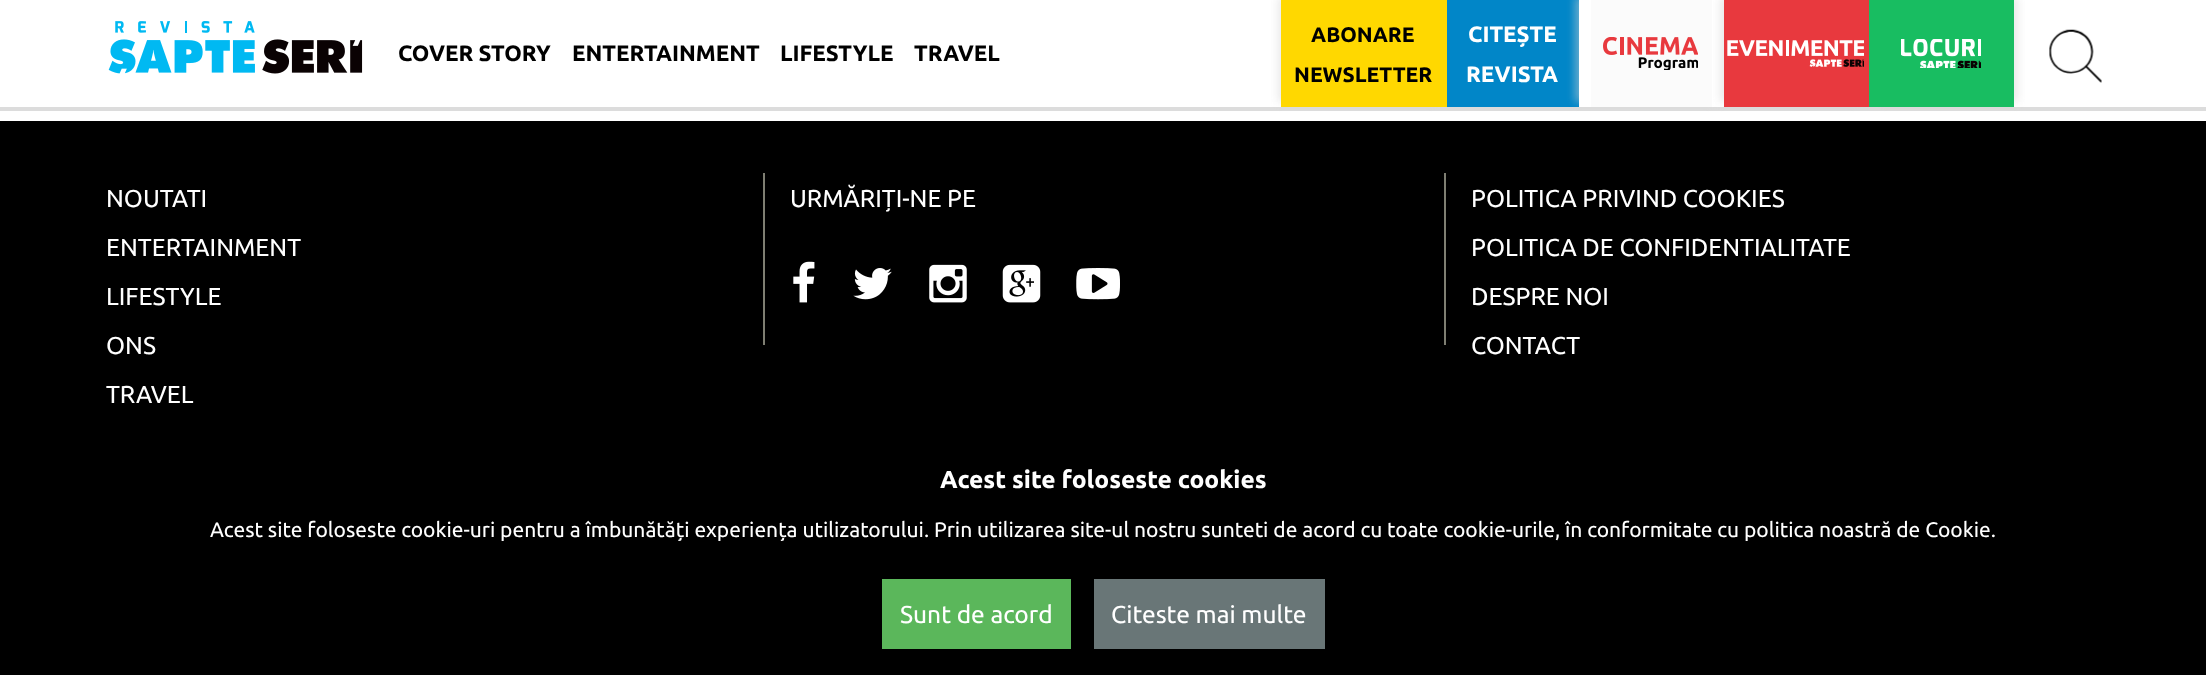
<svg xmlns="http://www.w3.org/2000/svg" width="2206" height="675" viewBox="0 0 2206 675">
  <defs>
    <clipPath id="clip1"><path d="M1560 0H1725V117H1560ZM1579-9H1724V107H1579Z" clip-rule="evenodd"/></clipPath>
  </defs>
  <rect width="100%" height="100%" fill="#fff"/>
  <path d="M0 107h2206v4H0z" fill="#dcdcdc"/>
  <image x="108" y="21" width="255" height="53" href="img/1.png"/>
  <path d="M1278 -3h155v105H1278z" fill="#d3d3d380" filter="blur(4.5px)"/>
  <path d="M1281 0h166v107H1281z" fill="#ffd800"/>
  <path d="M1447 0h132v107H1447z" fill="#0186c8"/>
  <g clip-path="url(#clip1)">
    <path d="M1575 -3h135v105H1575z" fill="#d3d3d380" filter="blur(4.5px)"/>
  </g>
  <path d="M1591 0h121v107H1591z" fill="#fbfbfb"/>
  <image x="1603" y="37" width="95" height="33" href="img/2.png"/>
  <path d="M1720 -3h135v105H1720z" fill="#d3d3d380" filter="blur(4.5px)"/>
  <path d="M1724 0h145v107H1724z" fill="#e8393e"/>
  <image x="1727" y="40" width="137" height="27" href="img/3.png"/>
  <path d="M1883 -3h135v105H1883z" fill="#d3d3d380" filter="blur(4.5px)"/>
  <path d="M1869 0h145v107H1869z" fill="#18bd61"/>
  <image x="1901" y="39" width="80" height="29" href="img/4.png"/>
  <image x="2049" y="29" width="53" height="54" href="img/5.png"/>
  <path d="M0 121h2206v554H0z" fill="#000"/>
  <path d="M1444 173h2v172H1444z" fill="#7e7e72"/>
  <path d="M763 173h2v172H763z" fill="#7e7e72"/>
  <image x="793" y="261" width="22" height="42" href="img/6.png"/>
  <image x="853" y="268" width="39" height="32" href="img/7.png"/>
  <image x="929" y="264" width="38" height="39" href="img/8.png"/>
  <image x="1002" y="264" width="39" height="39" href="img/9.png"/>
  <image x="1076" y="268" width="44" height="32" href="img/10.png"/>
  <path d="M882 579h189v70H882z" fill="#5bb75b"/>
  <path d="M1094 579h231v70H1094z" fill="#697677"/>
  <g font-family="Ubuntu" font-size="22.25" font-weight="bold" fill="#000">
    <text x="398" y="61">COVER STORY</text>
    <text x="572" y="61">ENTERTAINMENT</text>
    <text x="780" y="61">LIFESTYLE</text>
    <text x="914" y="61">TRAVEL</text>
  </g>
  <g font-family="Ubuntu" font-size="21" font-weight="bold" fill="#000">
    <text x="1311" y="42">ABONARE</text>
    <text x="1294" y="82">NEWSLETTER</text>
  </g>
  <g font-family="Ubuntu" font-size="22.25" font-weight="bold" fill="#fff">
    <text x="1468" y="42">CITEȘTE</text>
    <text x="1466" y="82">REVISTA</text>
  </g>
  <g font-family="Ubuntu" font-size="24.5" fill="#fff">
    <text x="106" y="207">NOUTATI</text>
    <text x="106" y="256">ENTERTAINMENT</text>
    <text x="106" y="305">LIFESTYLE</text>
    <text x="106" y="354">ONS</text>
    <text x="106" y="403">TRAVEL</text>
    <text x="790" y="207">URMĂRIȚI-NE PE</text>
    <text x="1471" y="207">POLITICA PRIVIND COOKIES</text>
    <text x="1471" y="256">POLITICA DE CONFIDENTIALITATE</text>
    <text x="1471" y="305">DESPRE NOI</text>
    <text x="1471" y="354">CONTACT</text>
  </g>
  <text x="940" y="488" font-family="Ubuntu" font-size="24.5" font-weight="bold" fill="#fff">Acest site foloseste cookies</text>
  <text x="210" y="537" font-family="Ubuntu" font-size="21" fill="#fff">Acest site foloseste cookie-uri pentru a îmbunătăți experiența utilizatorului. Prin utilizarea site-ul nostru sunteti de acord cu toate cookie-urile, în conformitate cu politica noastră de Cookie.</text>
  <g font-family="Ubuntu" font-size="24.5" fill="#fff">
    <text x="900" y="623">Sunt de acord</text>
    <text x="1111" y="623">Citeste mai multe</text>
  </g>
</svg>
